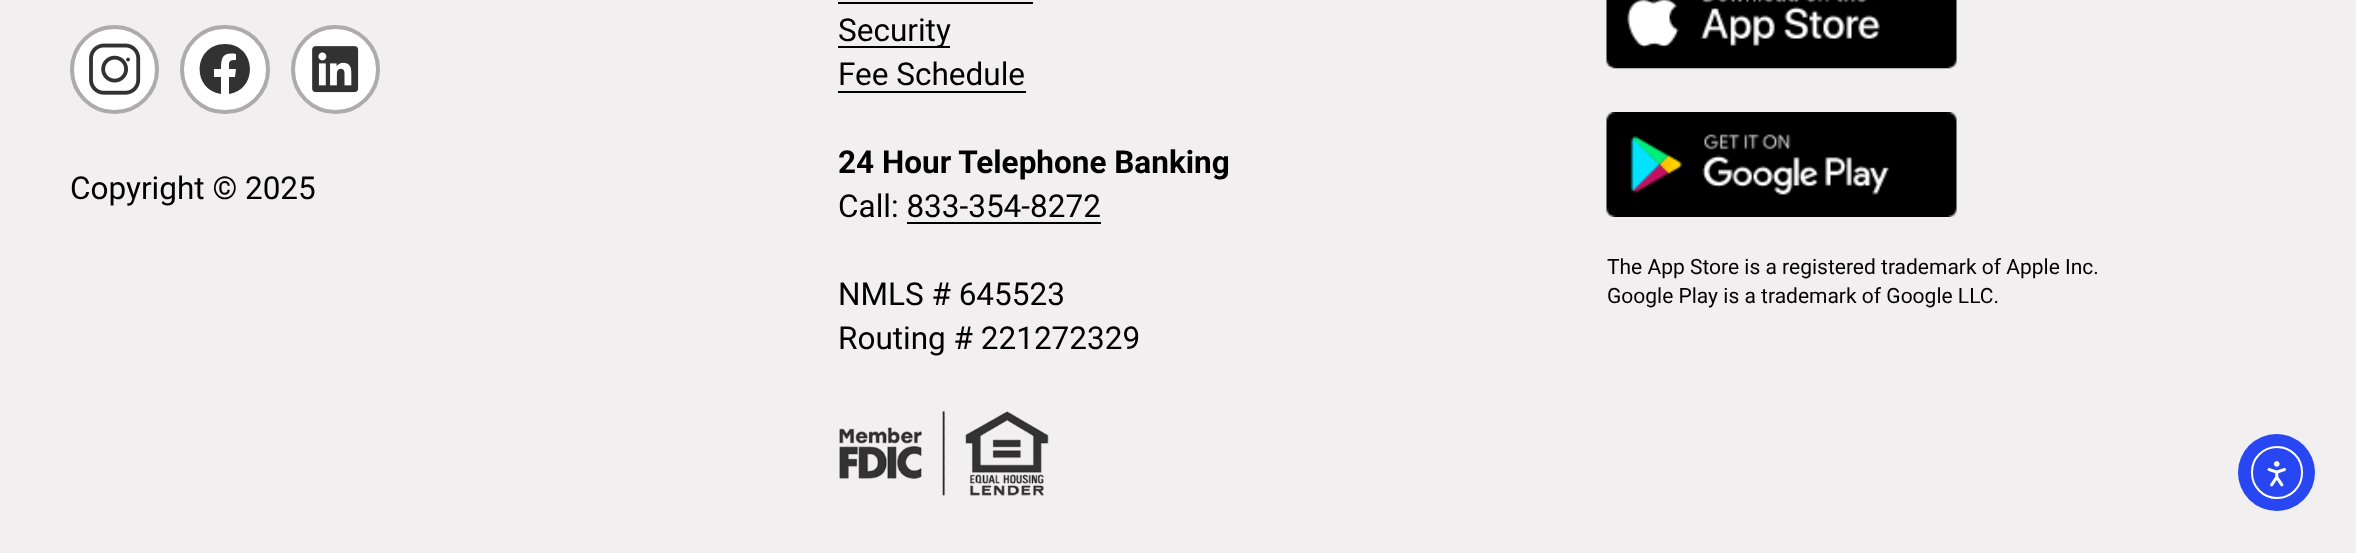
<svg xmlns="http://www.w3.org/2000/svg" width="2356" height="553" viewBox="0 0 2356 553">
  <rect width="100%" height="100%" fill="#f1efef"/>
  <circle cx="114.5" cy="69.5" r="42.5" fill="#fff" stroke="#adabab" stroke-width="4"/>
  <image x="89" y="43" width="52" height="52" href="img/1.png"/>
  <rect x="182" y="27" width="86" height="85" rx="42.5" fill="#fff" stroke="#adabab" stroke-width="4"/>
  <path d="M225 44C194 44 190 89 221 94V77H214V69H221C221 57 223 52 236 54V60C228 60 229 62 229 69H236L235 77H229V94C259 89 256 44 225 44Z" fill="#323232"/>
  <circle cx="335.5" cy="69.5" r="42.5" fill="#fff" stroke="#adabab" stroke-width="4"/>
  <image x="312" y="46" width="47" height="47" href="img/2.png"/>
  <path d="M838 2h195v2H838z" fill="#000"/>
  <path d="M838 46h112v2H838z" fill="#000"/>
  <path d="M838 91h188v2H838z" fill="#000"/>
  <path d="M907 222h194v2H907z" fill="#000"/>
  <image x="839" y="410" width="210" height="86" href="img/3.png"/>
  <image x="1606" y="0" width="351" height="69" href="img/4.png"/>
  <image x="1606" y="112" width="351" height="105" href="img/5.png"/>
  <circle cx="2276.5" cy="472.5" r="38.5" fill="#2847f3"/>
  <rect x="2252" y="447" width="50" height="51" rx="25" fill="none" stroke="#fff" stroke-width="2"/>
  <image x="2267" y="461" width="19" height="26" href="img/6.png"/>
  <g font-family="Roboto" font-size="31.5" fill="#000">
    <text x="70" y="199">Copyright © 2025</text>
    <text x="838" y="41">Security</text>
    <text x="838" y="85">Fee Schedule</text>
  </g>
  <text x="838" y="173" font-family="Roboto" font-size="31.5" font-weight="bold" fill="#000">24 Hour Telephone Banking</text>
  <g font-family="Roboto" font-size="31.5" fill="#000">
    <text x="838" y="217">Call: 833-354-8272</text>
    <text x="838" y="305">NMLS # 645523</text>
    <text x="838" y="349">Routing # 221272329</text>
  </g>
  <g font-family="Roboto" font-size="21" fill="#000">
    <text x="1607" y="274">The App Store is a registered trademark of Apple Inc.</text>
    <text x="1607" y="303">Google Play is a trademark of Google LLC.</text>
  </g>
</svg>
